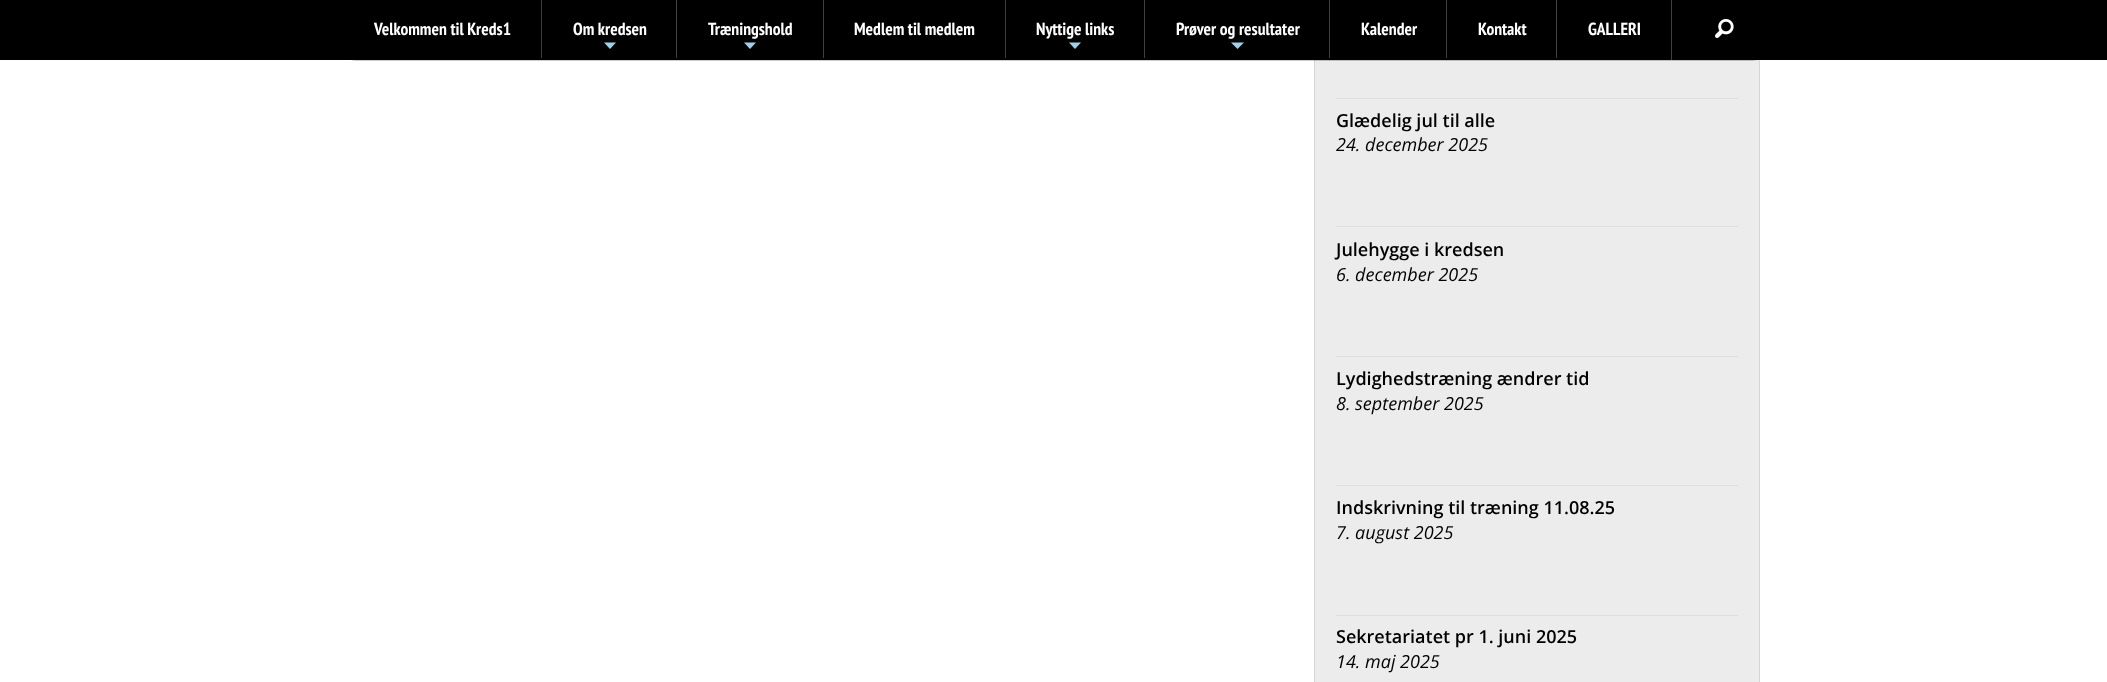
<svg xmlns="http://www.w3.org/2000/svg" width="2107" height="682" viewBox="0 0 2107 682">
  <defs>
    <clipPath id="clip1"><path d="M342 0H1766V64H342ZM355 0H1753C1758.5 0 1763 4.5 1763 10V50C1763 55.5 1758.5 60 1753 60H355C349.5 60 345 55.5 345 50V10C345 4.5 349.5 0 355 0Z" clip-rule="evenodd"/></clipPath>
  </defs>
  <rect width="100%" height="100%" fill="#fff"/>
  <path d="M1315 60h444v622H1315z" fill="#ececec"/>
  <path d="M1314.5 -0.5h445v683H1314.5z" fill="none" stroke="#d5d5d5"/>
  <path d="M0 0h2107v60H0z" fill="#000"/>
  <g clip-path="url(#clip1)">
    <rect x="345" y="1" width="1418" height="60" rx="10" fill="#00000033" filter="blur(0.5px)"/>
  </g>
  <path d="M541 0h1v58H541z" fill="#404040"/>
  <path d="M604 42.5H616L610 49Z" fill="#a1d1e8"/>
  <path d="M676 0h1v58H676z" fill="#404040"/>
  <path d="M744 42.5H756L750 49Z" fill="#a1d1e8"/>
  <path d="M823 0h1v58H823z" fill="#404040"/>
  <path d="M1005 0h1v58H1005z" fill="#404040"/>
  <path d="M1069 42.5H1081L1075 49Z" fill="#a1d1e8"/>
  <path d="M1144 0h1v58H1144z" fill="#404040"/>
  <path d="M1231 42.5H1244L1237.5 49Z" fill="#a1d1e8"/>
  <path d="M1329 0h1v58H1329z" fill="#404040"/>
  <path d="M1446 0h1v58H1446z" fill="#404040"/>
  <path d="M1556 0h1v58H1556z" fill="#404040"/>
  <path d="M1671 0h1v60H1671z" fill="#404040"/>
  <image x="1715" y="19" width="19" height="19" href="img/1.png"/>
  <path d="M1336 98h402v1H1336z" fill="#ddd"/>
  <path d="M1336 226h402v1H1336z" fill="#ddd"/>
  <path d="M1336 356h402v1H1336z" fill="#ddd"/>
  <path d="M1336 485h402v1H1336z" fill="#ddd"/>
  <path d="M1336 615h402v1H1336z" fill="#ddd"/>
  <g font-family="PT Sans Narrow" font-size="17.5" font-weight="bold" fill="#fff">
    <text x="374" y="35">Velkommen til Kreds1</text>
    <text x="573" y="35">Om kredsen</text>
    <text x="708" y="35">Træningshold</text>
    <text x="854" y="35">Medlem til medlem</text>
    <text x="1036" y="35">Nyttige links</text>
    <text x="1176" y="35">Prøver og resultater</text>
    <text x="1361" y="35">Kalender</text>
    <text x="1478" y="35">Kontakt</text>
    <text x="1588" y="35">GALLERI</text>
  </g>
  <text x="1336" y="127" font-family="Open Sans" font-size="18" font-weight="600" fill="#000">Glædelig jul til alle</text>
  <text x="1336" y="151" font-family="Open Sans" font-size="18" font-style="italic" fill="#000">24. december 2025</text>
  <text x="1336" y="256" font-family="Open Sans" font-size="18" font-weight="600" fill="#000">Julehygge i kredsen</text>
  <text x="1336" y="281" font-family="Open Sans" font-size="18" font-style="italic" fill="#000">6. december 2025</text>
  <text x="1336" y="385" font-family="Open Sans" font-size="18" font-weight="600" fill="#000">Lydighedstræning ændrer tid</text>
  <text x="1336" y="410" font-family="Open Sans" font-size="18" font-style="italic" fill="#000">8. september 2025</text>
  <text x="1336" y="514" font-family="Open Sans" font-size="18" font-weight="600" fill="#000">Indskrivning til træning 11.08.25</text>
  <text x="1336" y="539" font-family="Open Sans" font-size="18" font-style="italic" fill="#000">7. august 2025</text>
  <text x="1336" y="643" font-family="Open Sans" font-size="18" font-weight="600" fill="#000">Sekretariatet pr 1. juni 2025</text>
  <text x="1336" y="668" font-family="Open Sans" font-size="18" font-style="italic" fill="#000">14. maj 2025</text>
</svg>
